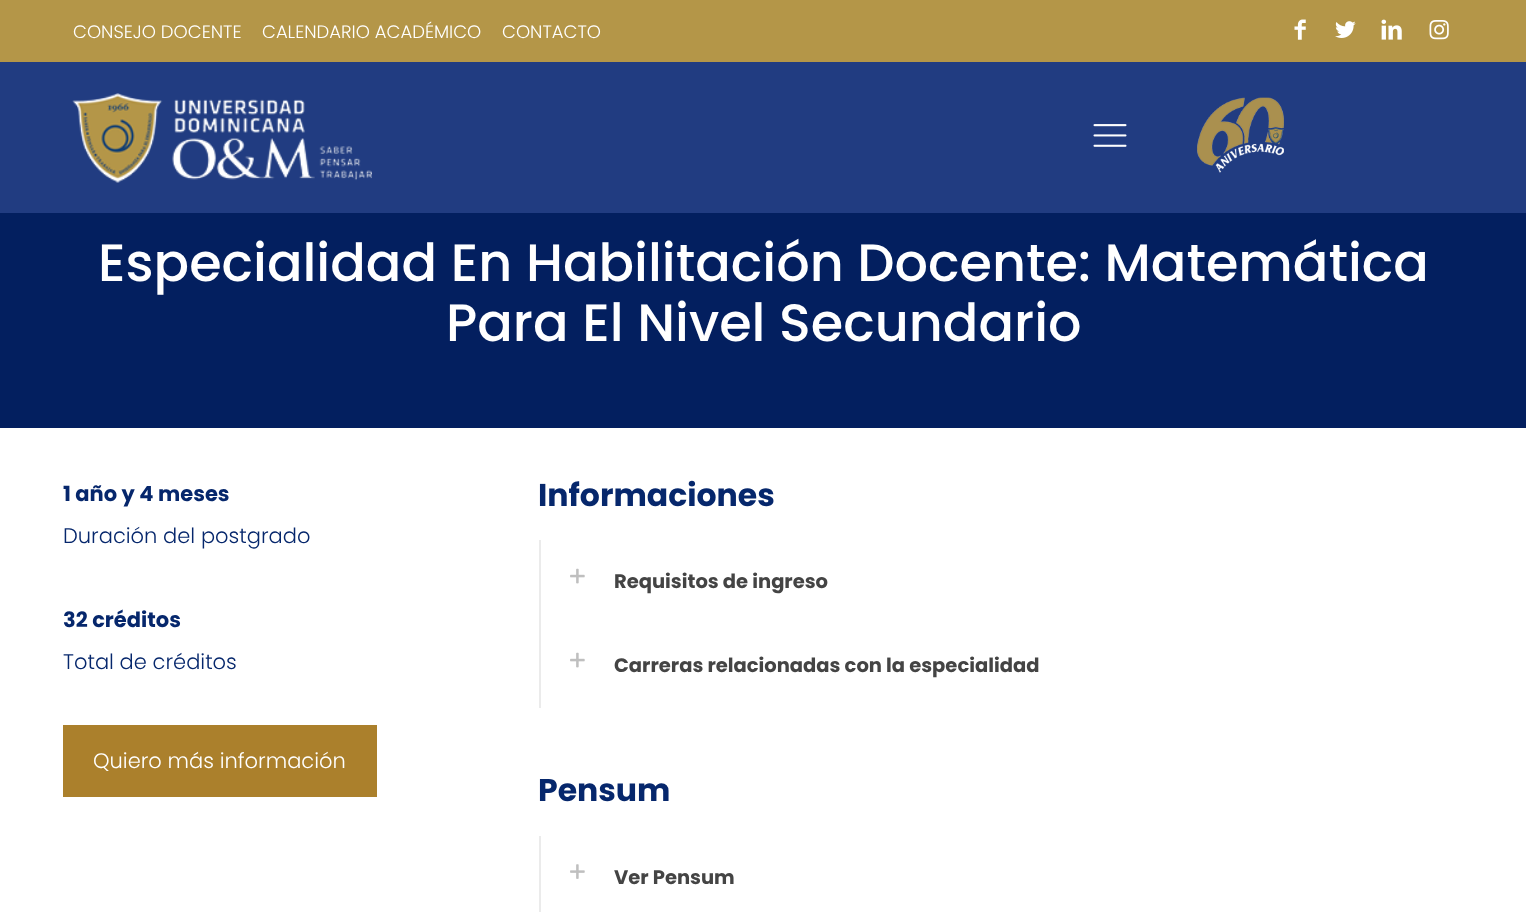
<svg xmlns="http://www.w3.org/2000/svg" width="1526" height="912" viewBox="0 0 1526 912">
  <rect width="100%" height="100%" fill="#fff"/>
  <path d="M0 213h1526v215H0z" fill="#031f5f"/>
  <path d="M0 0h1526v62H0z" fill="#b49648"/>
  <image x="1294" y="19" width="12" height="21" href="img/1.png"/>
  <image x="1335" y="21" width="21" height="17" href="img/2.png"/>
  <image x="1381" y="19" width="21" height="21" href="img/3.png"/>
  <image x="1429" y="20" width="20" height="20" href="img/4.png"/>
  <path d="M0 62h1526v151H0z" fill="#213c81"/>
  <image x="72" y="93" width="300" height="90" href="img/5.png"/>
  <image x="1093" y="124" width="34" height="23" href="img/6.png"/>
  <image x="1197" y="97" width="87" height="76" href="img/7.png"/>
  <path d="M63 725h314v72H63z" fill="#ab802c"/>
  <path d="M539 540h2v168H539z" fill="#ebebeb"/>
  <image x="570" y="568" width="15" height="16" href="img/8.png"/>
  <image x="570" y="652" width="15" height="16" href="img/8.png"/>
  <path d="M539 836h2v76H539z" fill="#ebebeb"/>
  <image x="570" y="864" width="15" height="15" href="img/9.png"/>
  <g font-family="Poppins" font-size="18" font-weight="300" fill="#fff">
    <text x="73" y="38">CONSEJO DOCENTE</text>
    <text x="262" y="38">CALENDARIO ACADÉMICO</text>
    <text x="502" y="38">CONTACTO</text>
  </g>
  <g font-family="Poppins" font-size="52.5" font-weight="500" fill="#fff">
    <text x="98" y="281">Especialidad En Habilitación Docente: Matemática</text>
    <text x="446" y="341">Para El Nivel Secundario</text>
  </g>
  <text x="63" y="501" font-family="Poppins" font-size="21" font-weight="bold" fill="#06276c">1 año y 4 meses</text>
  <text x="63" y="543" font-family="Poppins" font-size="21" font-weight="300" fill="#06276c">Duración del postgrado</text>
  <text x="63" y="627" font-family="Poppins" font-size="21" font-weight="bold" fill="#06276c">32 créditos</text>
  <text x="63" y="669" font-family="Poppins" font-size="21" font-weight="300" fill="#06276c">Total de créditos</text>
  <text x="93" y="768" font-family="Poppins" font-size="21" font-weight="300" fill="#fff">Quiero más información</text>
  <text x="538" y="506" font-family="Poppins" font-size="31.5" font-weight="bold" fill="#06276c">Informaciones</text>
  <g font-family="Poppins" font-size="19.5" font-weight="bold" fill="#444">
    <text x="614" y="588">Requisitos de ingreso</text>
    <text x="614" y="672">Carreras relacionadas con la especialidad</text>
  </g>
  <text x="538" y="801" font-family="Poppins" font-size="31.5" font-weight="bold" fill="#06276c">Pensum</text>
  <text x="614" y="884" font-family="Poppins" font-size="19.5" font-weight="bold" fill="#444">Ver Pensum</text>
</svg>
